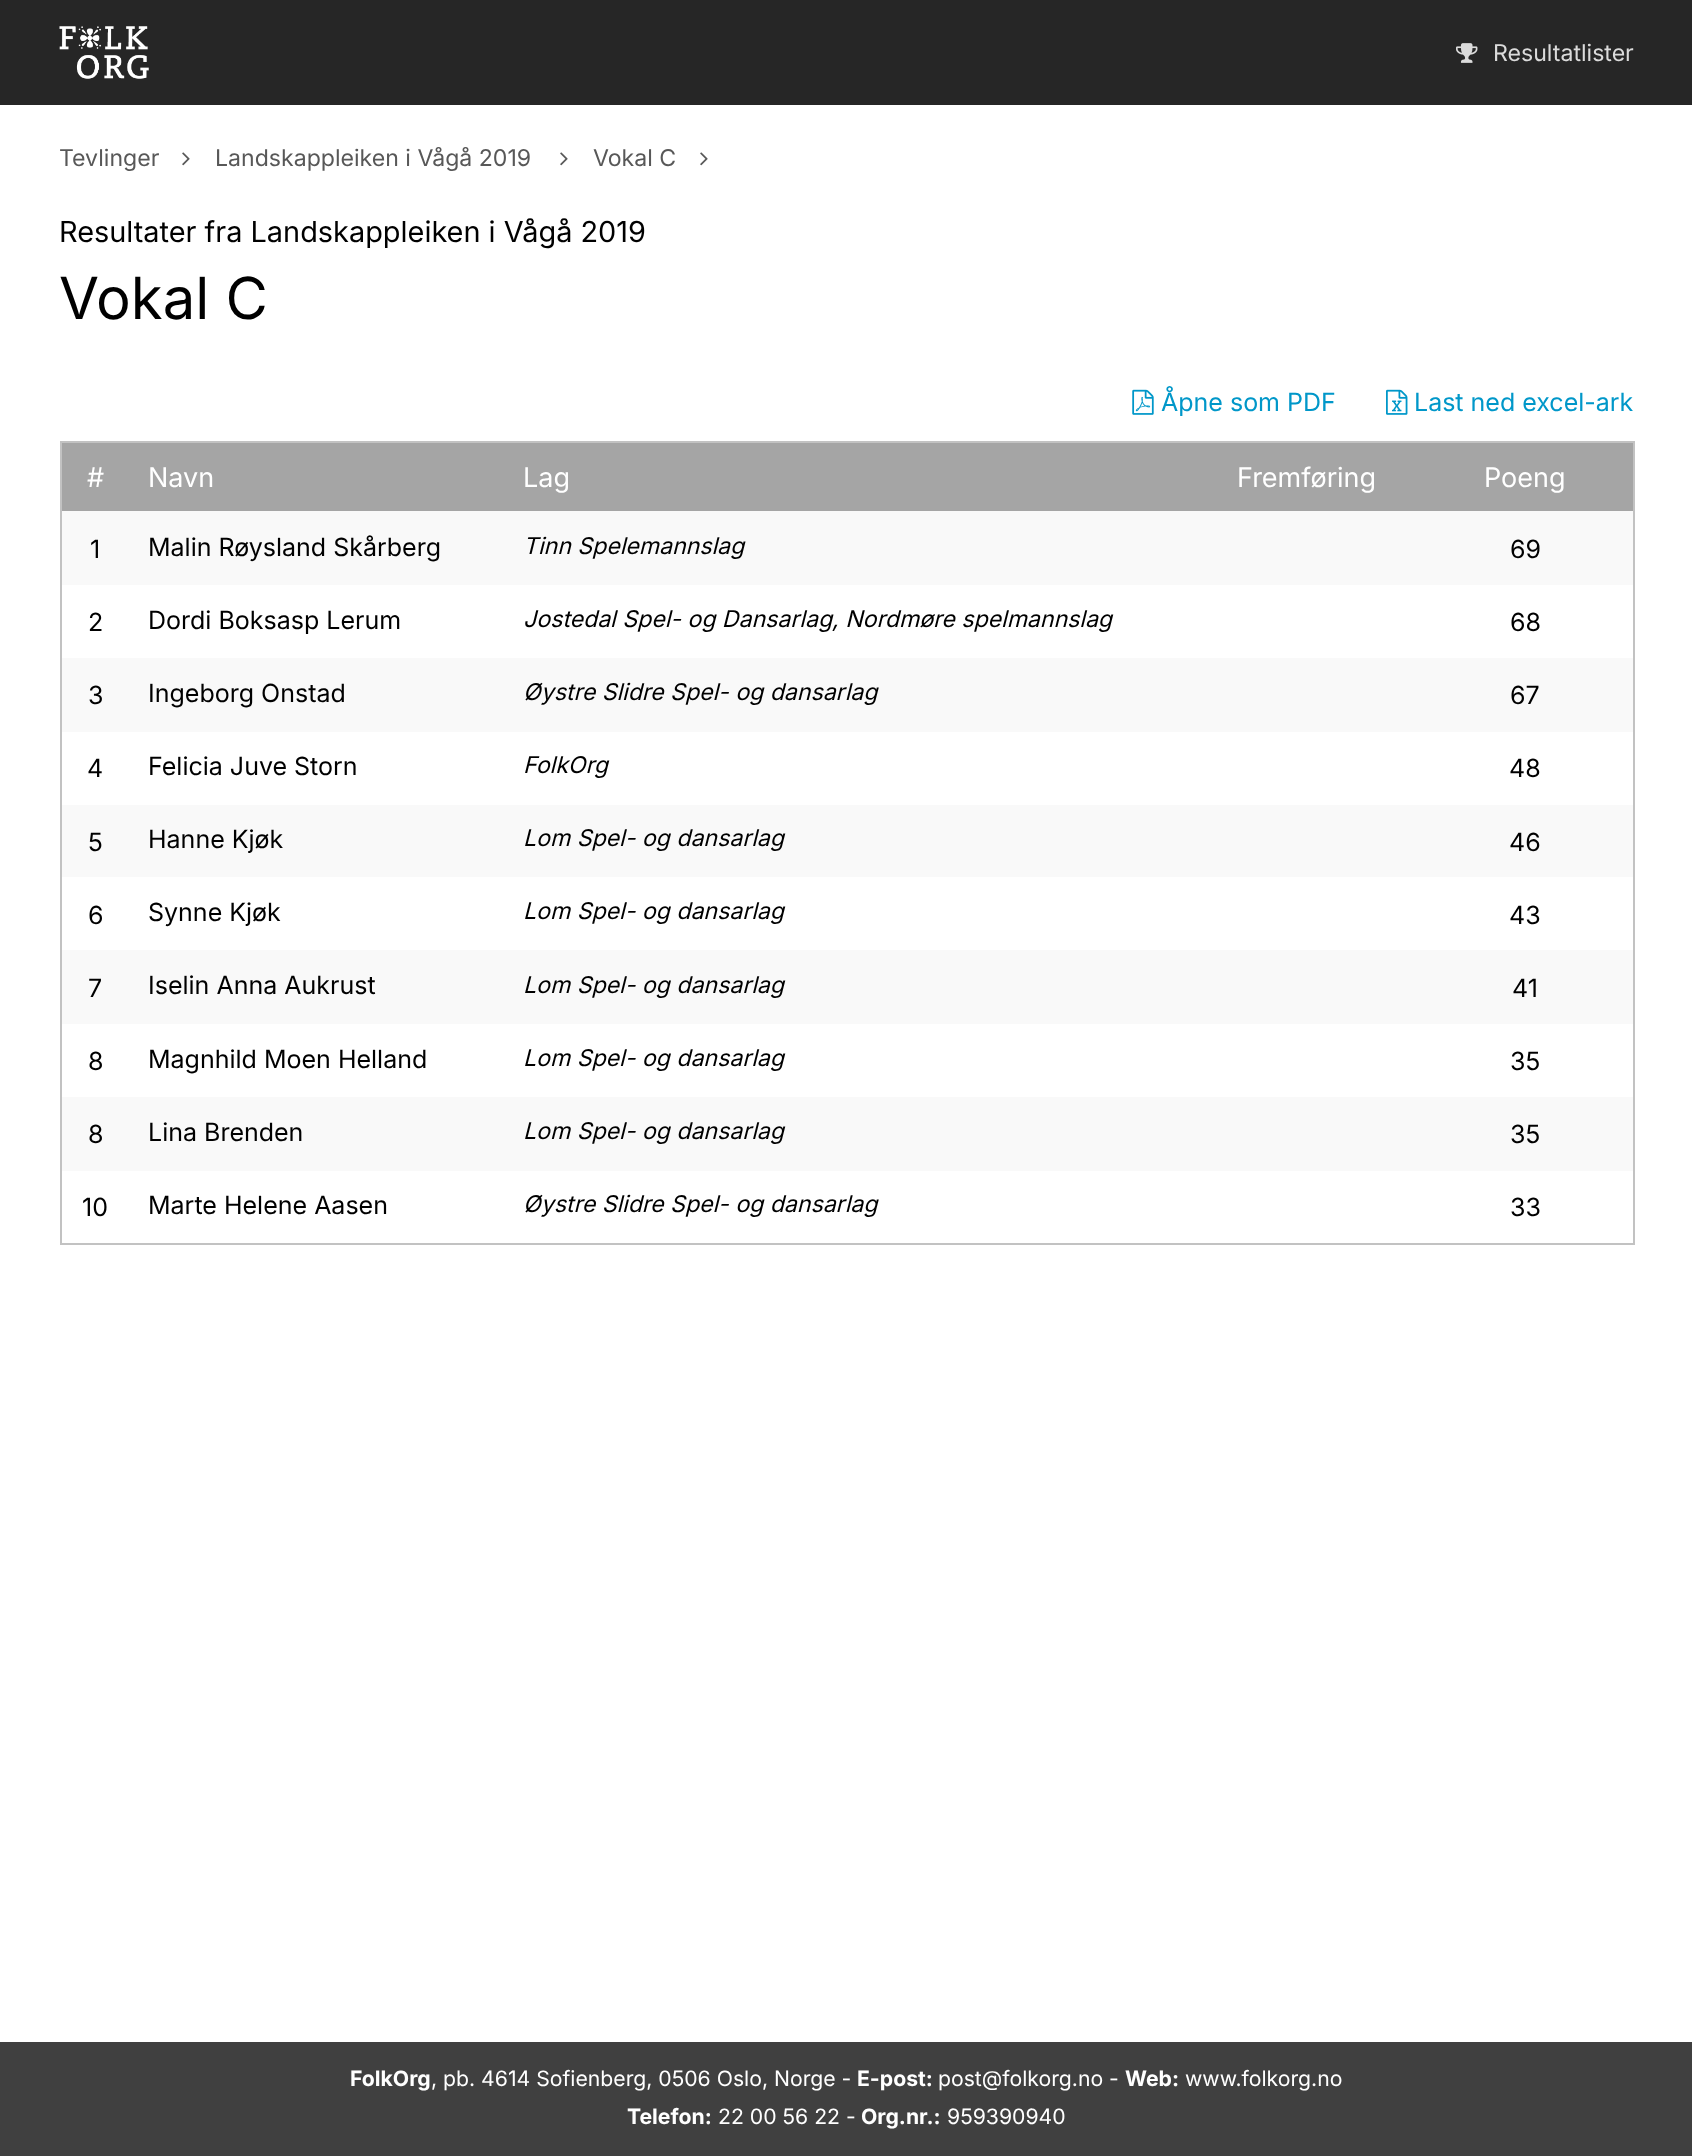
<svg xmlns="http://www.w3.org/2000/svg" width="1692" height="2156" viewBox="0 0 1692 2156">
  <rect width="100%" height="100%" fill="#fff"/>
  <path d="M0 0h1692v105H0z" fill="#262626"/>
  <image x="59" y="26" width="90" height="53" href="img/1.png"/>
  <image x="1456" y="43" width="22" height="20" href="img/2.png"/>
  <image x="182" y="152" width="8" height="14" href="img/3.png"/>
  <image x="560" y="152" width="8" height="14" href="img/3.png"/>
  <image x="700" y="152" width="8" height="14" href="img/3.png"/>
  <image x="1132" y="389" width="22" height="26" href="img/4.png"/>
  <image x="1386" y="389" width="22" height="26" href="img/5.png"/>
  <path d="M60 441h1575v2H60z" fill="#c2c2c2"/>
  <path d="M1633 441h2v803H1633z" fill="#c2c2c2"/>
  <path d="M60 1243h1575v2H60z" fill="#c2c2c2"/>
  <path d="M60 441h2v803H60z" fill="#c2c2c2"/>
  <path d="M62 443h1571v68H62z" fill="#a5a5a5"/>
  <path d="M62 511h1571v74H62z" fill="#f9f9f9"/>
  <path d="M62 658h1571v74H62z" fill="#f9f9f9"/>
  <path d="M62 805h1571v72H62z" fill="#f9f9f9"/>
  <path d="M62 950h1571v74H62z" fill="#f9f9f9"/>
  <path d="M62 1097h1571v74H62z" fill="#f9f9f9"/>
  <path d="M0 2042h1692v114H0z" fill="#404040"/>
  <text x="1493" y="61" font-family="Inter" font-size="23.1" fill="#dbdbdb">Resultatlister</text>
  <g font-family="Inter" font-size="23.1" fill="#585858">
    <text x="59" y="166">Tevlinger</text>
    <text x="215" y="166">Landskappleiken i Vågå 2019</text>
    <text x="593" y="166">Vokal C</text>
  </g>
  <text x="59" y="242" font-family="Inter" font-size="28.9" fill="#000">Resultater fra Landskappleiken i Vågå 2019</text>
  <text x="59" y="319" font-family="Inter" font-size="58" fill="#000">Vokal C</text>
  <g font-family="Inter" font-size="25" fill="#0097c9">
    <text x="1161" y="411">Åpne som PDF</text>
    <text x="1414" y="411">Last ned excel-ark</text>
  </g>
  <g font-family="Inter" font-size="27" fill="#fff">
    <text x="87" y="487">#</text>
    <text x="148" y="487">Navn</text>
    <text x="523" y="487">Lag</text>
    <text x="1237" y="487">Fremføring</text>
    <text x="1484" y="487">Poeng</text>
  </g>
  <g font-family="Inter" font-size="25" fill="#000">
    <text x="90" y="558">1</text>
    <text x="148" y="556">Malin Røysland Skårberg</text>
  </g>
  <text x="523" y="554" font-family="Inter" font-size="23.1" font-style="italic" fill="#000">Tinn Spelemannslag</text>
  <g font-family="Inter" font-size="25" fill="#000">
    <text x="1510" y="558">69</text>
    <text x="88" y="631">2</text>
    <text x="148" y="629">Dordi Boksasp Lerum</text>
  </g>
  <text x="523" y="627" font-family="Inter" font-size="23.1" font-style="italic" fill="#000">Jostedal Spel- og Dansarlag, Nordmøre spelmannslag</text>
  <g font-family="Inter" font-size="25" fill="#000">
    <text x="1510" y="631">68</text>
    <text x="88" y="704">3</text>
    <text x="148" y="702">Ingeborg Onstad</text>
  </g>
  <text x="523" y="700" font-family="Inter" font-size="23.1" font-style="italic" fill="#000">Øystre Slidre Spel- og dansarlag</text>
  <g font-family="Inter" font-size="25" fill="#000">
    <text x="1510" y="704">67</text>
    <text x="87" y="777">4</text>
    <text x="148" y="775">Felicia Juve Storn</text>
  </g>
  <text x="523" y="773" font-family="Inter" font-size="23.1" font-style="italic" fill="#000">FolkOrg</text>
  <g font-family="Inter" font-size="25" fill="#000">
    <text x="1509" y="777">48</text>
    <text x="88" y="851">5</text>
    <text x="148" y="848">Hanne Kjøk</text>
  </g>
  <text x="523" y="846" font-family="Inter" font-size="23.1" font-style="italic" fill="#000">Lom Spel- og dansarlag</text>
  <g font-family="Inter" font-size="25" fill="#000">
    <text x="1509" y="851">46</text>
    <text x="88" y="924">6</text>
    <text x="148" y="921">Synne Kjøk</text>
  </g>
  <text x="523" y="919" font-family="Inter" font-size="23.1" font-style="italic" fill="#000">Lom Spel- og dansarlag</text>
  <g font-family="Inter" font-size="25" fill="#000">
    <text x="1509" y="924">43</text>
    <text x="88" y="997">7</text>
    <text x="148" y="994">Iselin Anna Aukrust</text>
  </g>
  <text x="523" y="993" font-family="Inter" font-size="23.1" font-style="italic" fill="#000">Lom Spel- og dansarlag</text>
  <g font-family="Inter" font-size="25" fill="#000">
    <text x="1512" y="997">41</text>
    <text x="88" y="1070">8</text>
    <text x="148" y="1068">Magnhild Moen Helland</text>
  </g>
  <text x="523" y="1066" font-family="Inter" font-size="23.1" font-style="italic" fill="#000">Lom Spel- og dansarlag</text>
  <g font-family="Inter" font-size="25" fill="#000">
    <text x="1510" y="1070">35</text>
    <text x="88" y="1143">8</text>
    <text x="148" y="1141">Lina Brenden</text>
  </g>
  <text x="523" y="1139" font-family="Inter" font-size="23.1" font-style="italic" fill="#000">Lom Spel- og dansarlag</text>
  <g font-family="Inter" font-size="25" fill="#000">
    <text x="1510" y="1143">35</text>
    <text x="82" y="1216">10</text>
    <text x="148" y="1214">Marte Helene Aasen</text>
  </g>
  <text x="523" y="1212" font-family="Inter" font-size="23.1" font-style="italic" fill="#000">Øystre Slidre Spel- og dansarlag</text>
  <text x="1510" y="1216" font-family="Inter" font-size="25" fill="#000">33</text>
  <text x="350" y="2086" font-family="Inter" font-size="21.2" font-weight="bold" fill="#fff">FolkOrg</text>
  <text x="431" y="2086" font-family="Inter" font-size="21.2" fill="#fff">, pb. 4614 Sofienberg, 0506 Oslo, Norge -</text>
  <text x="857" y="2086" font-family="Inter" font-size="21.2" font-weight="bold" fill="#fff">E-post:</text>
  <text x="938" y="2086" font-family="Inter" font-size="21.2" fill="#fff">post@folkorg.no -</text>
  <text x="1125" y="2086" font-family="Inter" font-size="21.2" font-weight="bold" fill="#fff">Web:</text>
  <text x="1185" y="2086" font-family="Inter" font-size="21.2" fill="#fff">www.folkorg.no</text>
  <text x="627" y="2124" font-family="Inter" font-size="21.2" font-weight="bold" fill="#fff">Telefon:</text>
  <text x="718" y="2124" font-family="Inter" font-size="21.2" fill="#fff">22 00 56 22 -</text>
  <text x="861" y="2124" font-family="Inter" font-size="21.2" font-weight="bold" fill="#fff">Org.nr.:</text>
  <text x="947" y="2124" font-family="Inter" font-size="21.2" fill="#fff">959390940</text>
</svg>
